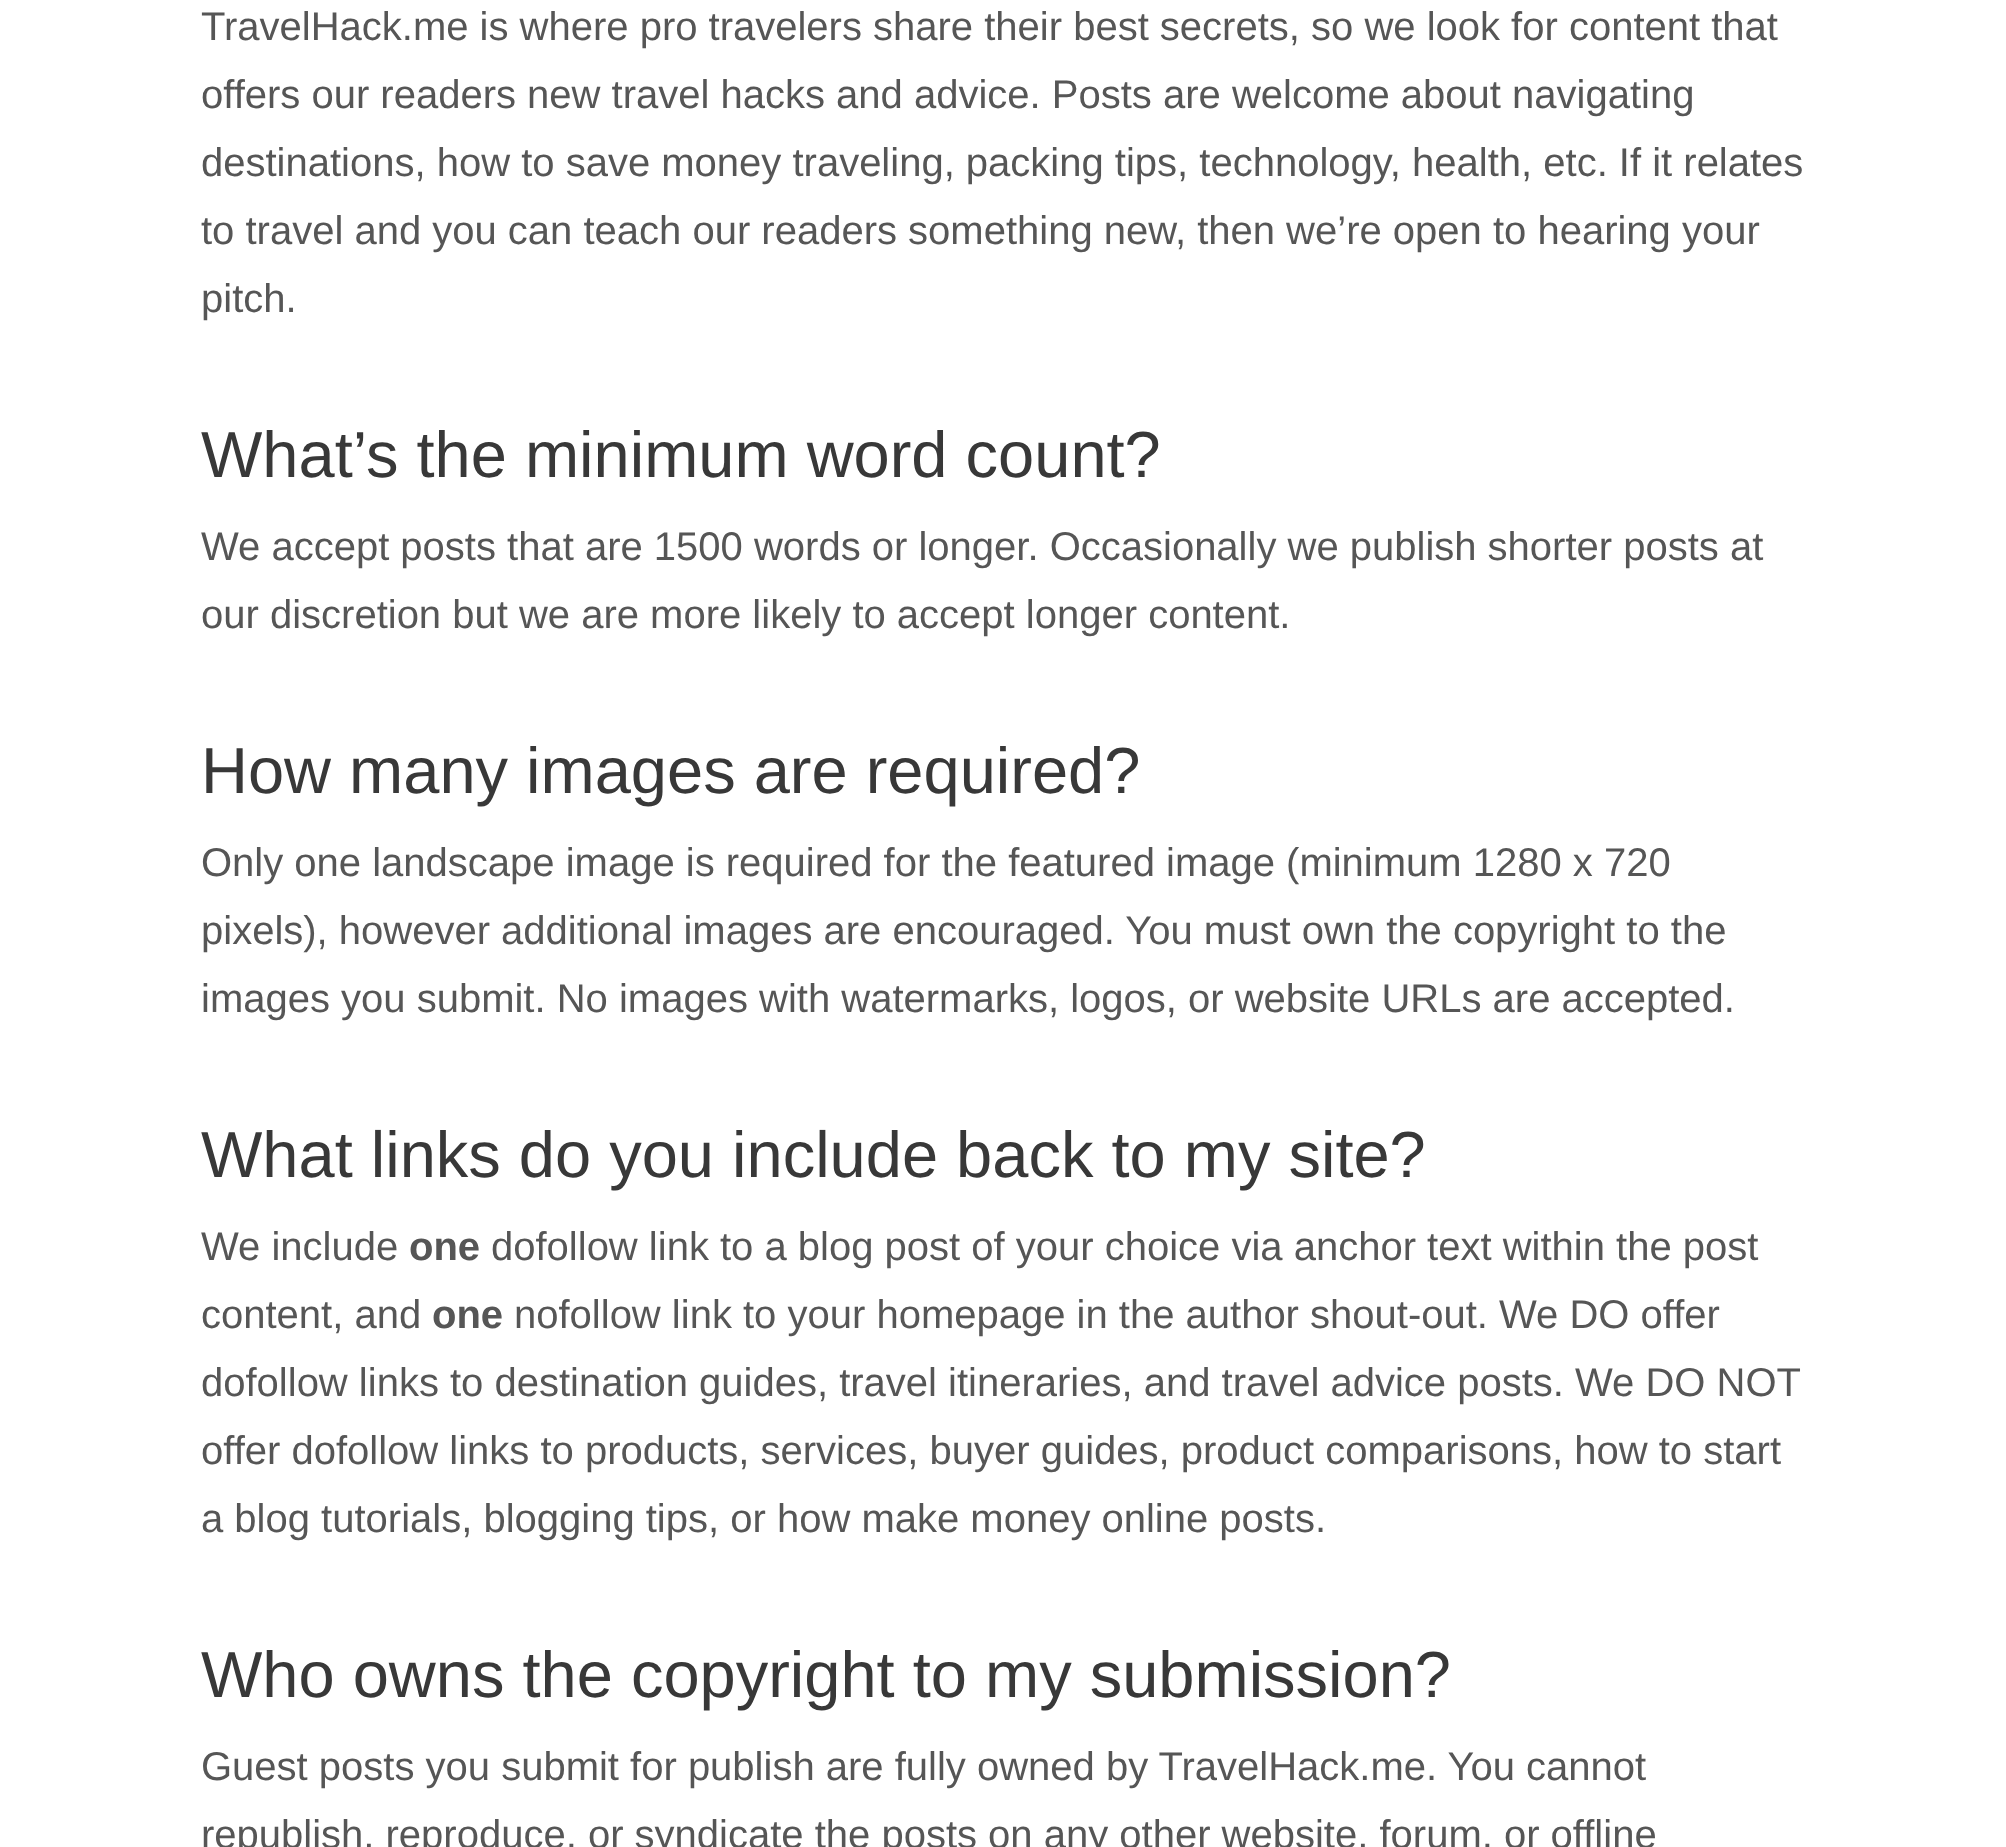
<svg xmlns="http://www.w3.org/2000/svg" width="2006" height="1847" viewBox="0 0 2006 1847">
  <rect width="100%" height="100%" fill="#fff"/>
  <g font-family="Liberation Sans" font-size="40" fill="#565656">
    <text x="201" y="40">TravelHack.me is where pro travelers share their best secrets, so we look for content that</text>
    <text x="201" y="108">offers our readers new travel hacks and advice. Posts are welcome about navigating</text>
    <text x="201" y="176">destinations, how to save money traveling, packing tips, technology, health, etc. If it relates</text>
    <text x="201" y="244">to travel and you can teach our readers something new, then we’re open to hearing your</text>
    <text x="201" y="312">pitch.</text>
  </g>
  <text x="201" y="477" font-family="Liberation Sans" font-size="65" fill="#383838">What’s the minimum word count?</text>
  <g font-family="Liberation Sans" font-size="40" fill="#565656">
    <text x="201" y="560">We accept posts that are 1500 words or longer. Occasionally we publish shorter posts at</text>
    <text x="201" y="628">our discretion but we are more likely to accept longer content.</text>
  </g>
  <text x="201" y="793" font-family="Liberation Sans" font-size="65" fill="#383838">How many images are required?</text>
  <g font-family="Liberation Sans" font-size="40" fill="#565656">
    <text x="201" y="876">Only one landscape image is required for the featured image (minimum 1280 x 720</text>
    <text x="201" y="944">pixels), however additional images are encouraged. You must own the copyright to the</text>
    <text x="201" y="1012">images you submit. No images with watermarks, logos, or website URLs are accepted.</text>
  </g>
  <text x="201" y="1177" font-family="Liberation Sans" font-size="65" fill="#383838">What links do you include back to my site?</text>
  <text x="201" y="1260" font-family="Liberation Sans" font-size="40" fill="#565656">We include</text>
  <text x="409" y="1260" font-family="Liberation Sans" font-size="40" font-weight="bold" fill="#565656">one</text>
  <g font-family="Liberation Sans" font-size="40" fill="#565656">
    <text x="491" y="1260">dofollow link to a blog post of your choice via anchor text within the post</text>
    <text x="201" y="1328">content, and</text>
  </g>
  <text x="432" y="1328" font-family="Liberation Sans" font-size="40" font-weight="bold" fill="#565656">one</text>
  <g font-family="Liberation Sans" font-size="40" fill="#565656">
    <text x="514" y="1328">nofollow link to your homepage in the author shout-out. We DO offer</text>
    <text x="201" y="1396">dofollow links to destination guides, travel itineraries, and travel advice posts. We DO NOT</text>
    <text x="201" y="1464">offer dofollow links to products, services, buyer guides, product comparisons, how to start</text>
    <text x="201" y="1532">a blog tutorials, blogging tips, or how make money online posts.</text>
  </g>
  <text x="201" y="1697" font-family="Liberation Sans" font-size="65" fill="#383838">Who owns the copyright to my submission?</text>
  <g font-family="Liberation Sans" font-size="40" fill="#565656">
    <text x="201" y="1780">Guest posts you submit for publish are fully owned by TravelHack.me. You cannot</text>
    <text x="201" y="1848">republish, reproduce, or syndicate the posts on any other website, forum, or offline</text>
  </g>
</svg>
